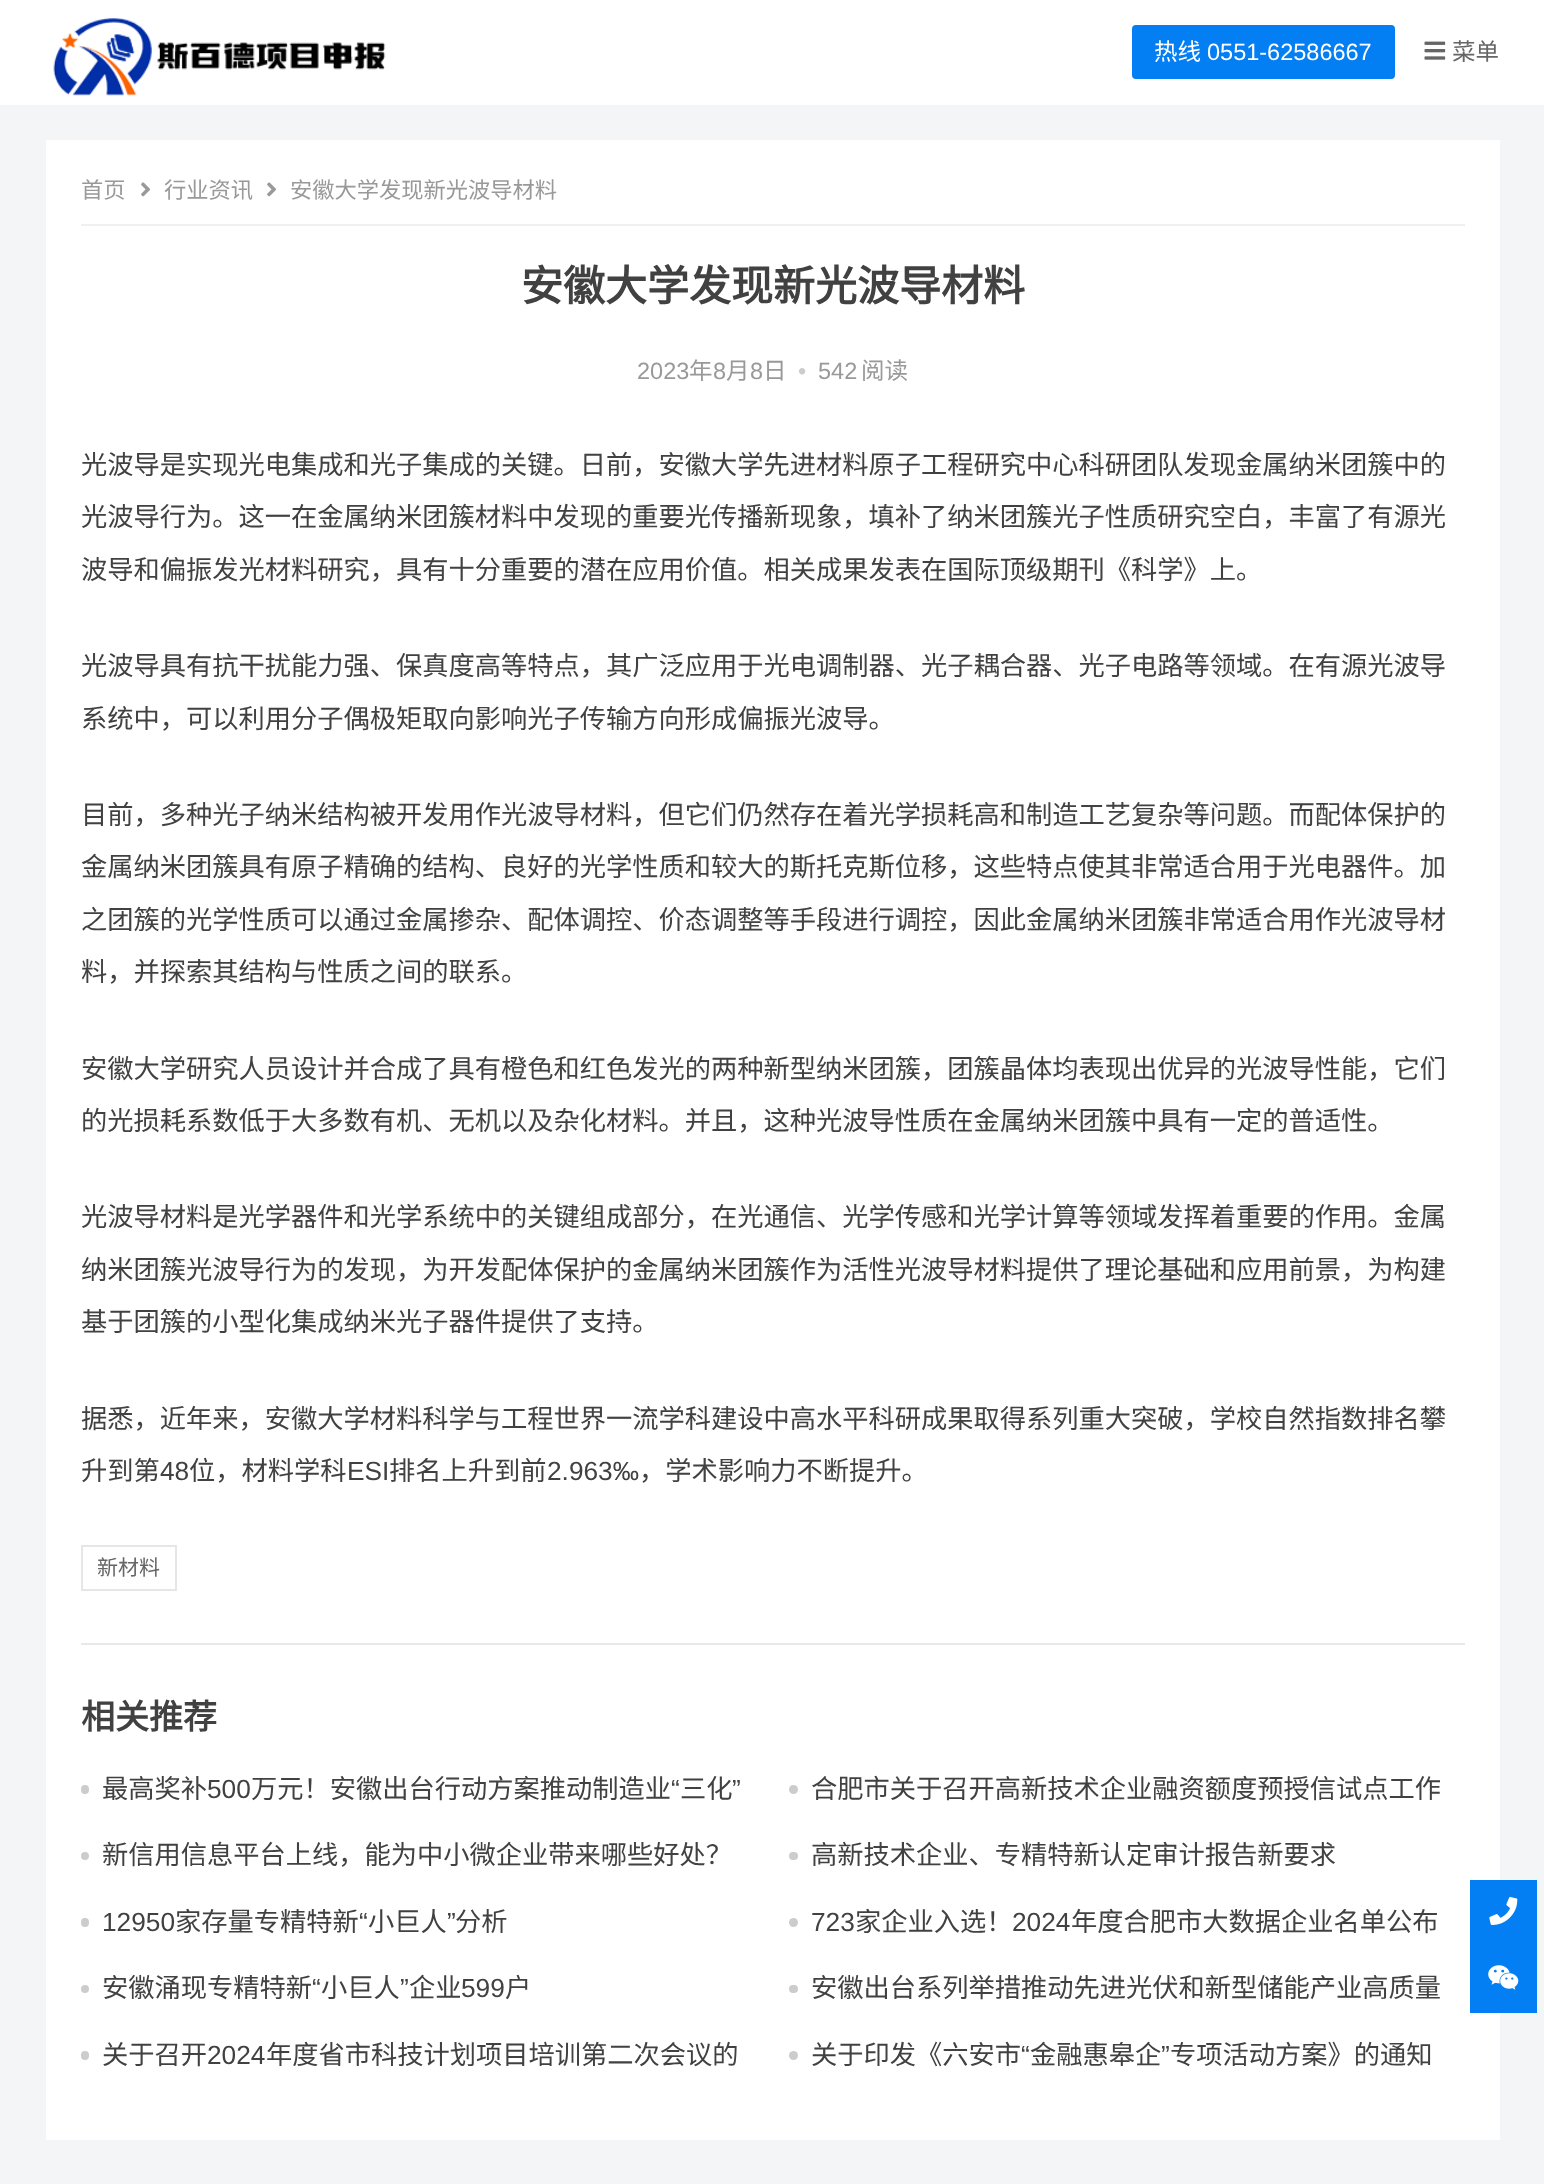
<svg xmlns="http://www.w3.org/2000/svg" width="1544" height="2184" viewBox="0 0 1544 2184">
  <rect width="100%" height="100%" fill="#fff"/>
  <image x="53" y="18" width="333" height="78" href="img/1.png"/>
  <rect x="1132" y="25" width="263" height="54" rx="4" fill="#037ef3"/>
  <image x="1424" y="41" width="22" height="19" href="img/2.png"/>
  <path d="M0 105h1544v2079H0z" fill="#f4f5f6"/>
  <path d="M46 140h1454v2000H46z" fill="#fff"/>
  <path d="M81 224h1384v2H81z" fill="#f0f0f0"/>
  <image x="141" y="182" width="9" height="15" href="img/3.png"/>
  <image x="267" y="182" width="9" height="15" href="img/3.png"/>
  <path d="M82 1546h94v44H82z" fill="none" stroke="#e6e6e6" stroke-width="2"/>
  <path d="M81 1643h1384v2H81z" fill="#e9e9e9"/>
  <rect x="81" y="1785" width="8" height="9" rx="4" fill="#ccc"/>
  <circle cx="793.5" cy="1789.5" r="4.5" fill="#ccc"/>
  <circle cx="85" cy="1856" r="4" fill="#ccc"/>
  <rect x="789" y="1852" width="9" height="8" rx="4" fill="#ccc"/>
  <rect x="81" y="1918" width="8" height="9" rx="4" fill="#ccc"/>
  <circle cx="793.5" cy="1922.5" r="4.5" fill="#ccc"/>
  <circle cx="85" cy="1989" r="4" fill="#ccc"/>
  <rect x="789" y="1985" width="9" height="8" rx="4" fill="#ccc"/>
  <rect x="81" y="2051" width="8" height="9" rx="4" fill="#ccc"/>
  <circle cx="793.5" cy="2055.5" r="4.5" fill="#ccc"/>
  <path d="M1470 1880h67v133H1470z" fill="#037ef3"/>
  <image x="1489" y="1897" width="29" height="28" href="img/4.png"/>
  <image x="1488" y="1965" width="31" height="25" href="img/5.png"/>
  <text x="1154" y="60" font-family="Noto Sans CJK SC" font-size="23.5" fill="#fff">热线</text>
  <text x="1207" y="60" font-family="Liberation Sans" font-size="23.5" fill="#fff">0551-62586667</text>
  <text x="1452" y="60" font-family="Noto Sans CJK SC" font-size="23.5" fill="#666">菜单</text>
  <g font-family="Noto Sans CJK SC" font-size="22.25" fill="#999">
    <text x="81" y="198">首页</text>
    <text x="164" y="198">行业资讯</text>
    <text x="290" y="198">安徽大学发现新光波导材料</text>
  </g>
  <text x="521" y="301" font-family="Noto Sans CJK SC" font-size="42" font-weight="bold" fill="#414141">安徽大学发现新光波导材料</text>
  <text x="637" y="379" font-family="Liberation Sans" font-size="23.5" fill="#999">2023</text>
  <text x="689" y="379" font-family="Noto Sans CJK SC" font-size="23.5" fill="#999">年</text>
  <text x="713" y="379" font-family="Liberation Sans" font-size="23.5" fill="#999">8</text>
  <text x="726" y="379" font-family="Noto Sans CJK SC" font-size="23.5" fill="#999">月</text>
  <text x="750" y="379" font-family="Liberation Sans" font-size="23.5" fill="#999">8</text>
  <text x="763" y="379" font-family="Noto Sans CJK SC" font-size="23.5" fill="#999">日</text>
  <text x="798" y="379" font-family="Liberation Sans" font-size="23.5" fill="#ccc">•</text>
  <text x="818" y="379" font-family="Liberation Sans" font-size="23.5" fill="#999">542</text>
  <text x="861" y="379" font-family="Noto Sans CJK SC" font-size="23.5" fill="#999">阅读</text>
  <g font-family="Noto Sans CJK SC" font-size="26.25" fill="#414141">
    <text x="81" y="474">光波导是实现光电集成和光子集成的关键。日前，安徽大学先进材料原子工程研究中心科研团队发现金属纳米团簇中的</text>
    <text x="81" y="526">光波导行为。这一在金属纳米团簇材料中发现的重要光传播新现象，填补了纳米团簇光子性质研究空白，丰富了有源光</text>
    <text x="81" y="579">波导和偏振发光材料研究，具有十分重要的潜在应用价值。相关成果发表在国际顶级期刊《科学》上。</text>
    <text x="81" y="675">光波导具有抗干扰能力强、保真度高等特点，其广泛应用于光电调制器、光子耦合器、光子电路等领域。在有源光波导</text>
    <text x="81" y="728">系统中，可以利用分子偶极矩取向影响光子传输方向形成偏振光波导。</text>
    <text x="81" y="824">目前，多种光子纳米结构被开发用作光波导材料，但它们仍然存在着光学损耗高和制造工艺复杂等问题。而配体保护的</text>
    <text x="81" y="876">金属纳米团簇具有原子精确的结构、良好的光学性质和较大的斯托克斯位移，这些特点使其非常适合用于光电器件。加</text>
    <text x="81" y="929">之团簇的光学性质可以通过金属掺杂、配体调控、价态调整等手段进行调控，因此金属纳米团簇非常适合用作光波导材</text>
    <text x="81" y="981">料，并探索其结构与性质之间的联系。</text>
    <text x="81" y="1078">安徽大学研究人员设计并合成了具有橙色和红色发光的两种新型纳米团簇，团簇晶体均表现出优异的光波导性能，它们</text>
    <text x="81" y="1130">的光损耗系数低于大多数有机、无机以及杂化材料。并且，这种光波导性质在金属纳米团簇中具有一定的普适性。</text>
    <text x="81" y="1226">光波导材料是光学器件和光学系统中的关键组成部分，在光通信、光学传感和光学计算等领域发挥着重要的作用。金属</text>
    <text x="81" y="1279">纳米团簇光波导行为的发现，为开发配体保护的金属纳米团簇作为活性光波导材料提供了理论基础和应用前景，为构建</text>
    <text x="81" y="1331">基于团簇的小型化集成纳米光子器件提供了支持。</text>
    <text x="81" y="1428">据悉，近年来，安徽大学材料科学与工程世界一流学科建设中高水平科研成果取得系列重大突破，学校自然指数排名攀</text>
    <text x="81" y="1480">升到第</text>
  </g>
  <text x="160" y="1480" font-family="Liberation Sans" font-size="26.25" fill="#414141">48</text>
  <text x="189" y="1480" font-family="Noto Sans CJK SC" font-size="26.25" fill="#414141">位，材料学科</text>
  <text x="347" y="1480" font-family="Liberation Sans" font-size="26.25" fill="#414141">ESI</text>
  <text x="389" y="1480" font-family="Noto Sans CJK SC" font-size="26.25" fill="#414141">排名上升到前</text>
  <text x="547" y="1480" font-family="Liberation Sans" font-size="26.25" fill="#414141">2.963‰</text>
  <text x="639" y="1480" font-family="Noto Sans CJK SC" font-size="26.25" fill="#414141">，学术影响力不断提升。</text>
  <text x="97" y="1575" font-family="Noto Sans CJK SC" font-size="21" fill="#666">新材料</text>
  <text x="81" y="1729" font-family="Noto Sans CJK SC" font-size="34" font-weight="bold" fill="#414141">相关推荐</text>
  <text x="102" y="1798" font-family="Noto Sans CJK SC" font-size="26.25" fill="#414141">最高奖补</text>
  <text x="207" y="1798" font-family="Liberation Sans" font-size="26.25" fill="#414141">500</text>
  <text x="251" y="1798" font-family="Noto Sans CJK SC" font-size="26.25" fill="#414141">万元！安徽出台行动方案推动制造业</text>
  <text x="671" y="1798" font-family="Liberation Sans" font-size="26.25" fill="#414141">“</text>
  <text x="680" y="1798" font-family="Noto Sans CJK SC" font-size="26.25" fill="#414141">三化</text>
  <text x="732" y="1798" font-family="Liberation Sans" font-size="26.25" fill="#414141">”</text>
  <g font-family="Noto Sans CJK SC" font-size="26.25" fill="#414141">
    <text x="811" y="1798">合肥市关于召开高新技术企业融资额度预授信试点工作</text>
    <text x="102" y="1864">新信用信息平台上线，能为中小微企业带来哪些好处？</text>
    <text x="811" y="1864">高新技术企业、专精特新认定审计报告新要求</text>
  </g>
  <text x="102" y="1931" font-family="Liberation Sans" font-size="26.25" fill="#414141">12950</text>
  <text x="175" y="1931" font-family="Noto Sans CJK SC" font-size="26.25" fill="#414141">家存量专精特新</text>
  <text x="359" y="1931" font-family="Liberation Sans" font-size="26.25" fill="#414141">“</text>
  <text x="368" y="1931" font-family="Noto Sans CJK SC" font-size="26.25" fill="#414141">小巨人</text>
  <text x="447" y="1931" font-family="Liberation Sans" font-size="26.25" fill="#414141">”</text>
  <text x="455" y="1931" font-family="Noto Sans CJK SC" font-size="26.25" fill="#414141">分析</text>
  <text x="811" y="1931" font-family="Liberation Sans" font-size="26.25" fill="#414141">723</text>
  <text x="855" y="1931" font-family="Noto Sans CJK SC" font-size="26.25" fill="#414141">家企业入选！</text>
  <text x="1012" y="1931" font-family="Liberation Sans" font-size="26.25" fill="#414141">2024</text>
  <g font-family="Noto Sans CJK SC" font-size="26.25" fill="#414141">
    <text x="1071" y="1931">年度合肥市大数据企业名单公布</text>
    <text x="102" y="1997">安徽涌现专精特新</text>
  </g>
  <text x="312" y="1997" font-family="Liberation Sans" font-size="26.25" fill="#414141">“</text>
  <text x="321" y="1997" font-family="Noto Sans CJK SC" font-size="26.25" fill="#414141">小巨人</text>
  <text x="400" y="1997" font-family="Liberation Sans" font-size="26.25" fill="#414141">”</text>
  <text x="409" y="1997" font-family="Noto Sans CJK SC" font-size="26.25" fill="#414141">企业</text>
  <text x="461" y="1997" font-family="Liberation Sans" font-size="26.25" fill="#414141">599</text>
  <g font-family="Noto Sans CJK SC" font-size="26.25" fill="#414141">
    <text x="505" y="1997">户</text>
    <text x="811" y="1997">安徽出台系列举措推动先进光伏和新型储能产业高质量</text>
    <text x="102" y="2064">关于召开</text>
  </g>
  <text x="207" y="2064" font-family="Liberation Sans" font-size="26.25" fill="#414141">2024</text>
  <g font-family="Noto Sans CJK SC" font-size="26.25" fill="#414141">
    <text x="266" y="2064">年度省市科技计划项目培训第二次会议的</text>
    <text x="811" y="2064">关于印发《六安市</text>
  </g>
  <text x="1021" y="2064" font-family="Liberation Sans" font-size="26.25" fill="#414141">“</text>
  <text x="1030" y="2064" font-family="Noto Sans CJK SC" font-size="26.25" fill="#414141">金融惠皋企</text>
  <text x="1161" y="2064" font-family="Liberation Sans" font-size="26.25" fill="#414141">”</text>
  <text x="1170" y="2064" font-family="Noto Sans CJK SC" font-size="26.25" fill="#414141">专项活动方案》的通知</text>
</svg>
